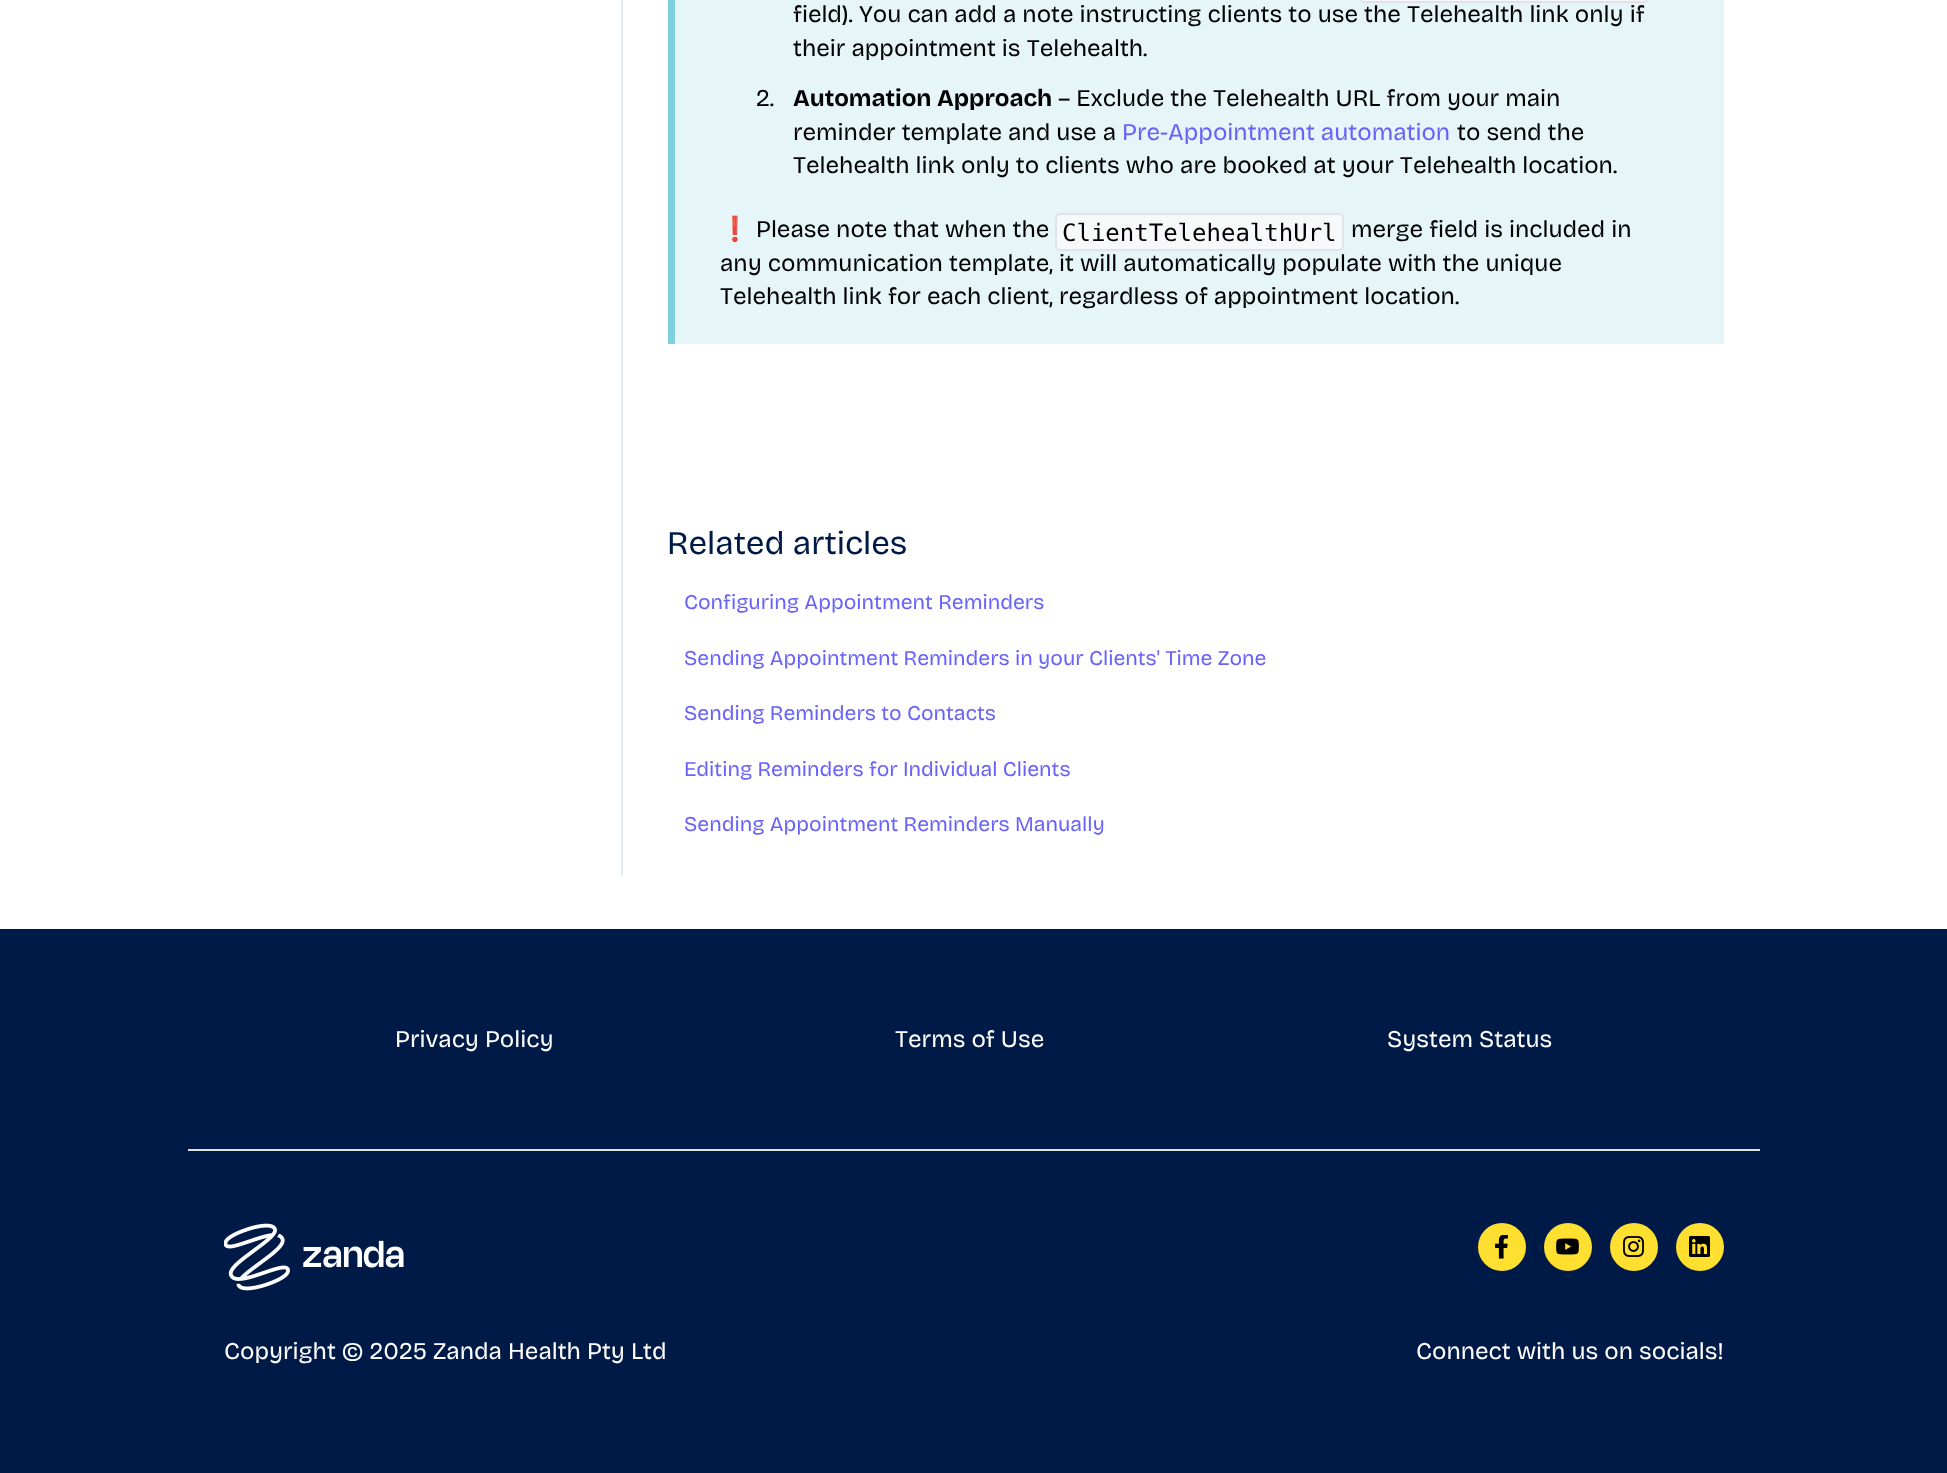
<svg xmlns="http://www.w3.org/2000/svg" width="1947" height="1473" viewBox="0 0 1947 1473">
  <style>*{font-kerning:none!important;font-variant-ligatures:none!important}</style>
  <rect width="100%" height="100%" fill="#fff"/>
  <path d="M621 0h2v875H621z" fill="#e2ebf4"/>
  <path d="M675 0h1049v344H675z" fill="#e5f5f8"/>
  <path d="M668 0h7v344H668z" fill="#7fd1de"/>
  <rect x="1360" y="-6" width="288" height="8" rx="4" fill="#f6f8fa" stroke="#e1e3ea" stroke-width="2"/>
  <rect x="1056" y="214" width="287" height="36" rx="4" fill="#f6f8fa" stroke="#e1e3ea" stroke-width="2"/>
  <path d="M0 929h1947v544H0z" fill="#001a47"/>
  <path d="M188 1149h1572v2H188z" fill="#e0e0e0"/>
  <image x="224" y="1223" width="180" height="68" href="img/1.png"/>
  <circle cx="1502" cy="1247" r="24" fill="#ffdf30"/>
  <image x="1495" y="1235" width="13" height="24" href="img/2.png"/>
  <circle cx="1568" cy="1247" r="24" fill="#ffdf30"/>
  <image x="1556" y="1238" width="23" height="17" href="img/3.png"/>
  <circle cx="1634" cy="1247" r="24" fill="#ffdf30"/>
  <image x="1623" y="1236" width="21" height="21" href="img/4.png"/>
  <circle cx="1700" cy="1247" r="24" fill="#ffdf30"/>
  <image x="1689" y="1236" width="21" height="21" href="img/5.png"/>
  <g font-family="Bricolage Grotesque" font-size="24" fill="#000">
    <text x="793" y="22">field). You can add a note instructing clients to use the Telehealth link only if</text>
    <text x="793" y="56">their appointment is Telehealth.</text>
    <text x="756" y="106">2.</text>
  </g>
  <text x="793" y="106" font-family="Bricolage Grotesque" font-size="24" font-weight="bold" fill="#000">Automation Approach</text>
  <g font-family="Bricolage Grotesque" font-size="24" fill="#000">
    <text x="1058" y="106">– Exclude the Telehealth URL from your main</text>
    <text x="793" y="140">reminder template and use a</text>
  </g>
  <text x="1122" y="140" font-family="Bricolage Grotesque" font-size="24" fill="#6862f9">Pre-Appointment automation</text>
  <g font-family="Bricolage Grotesque" font-size="24" fill="#000">
    <text x="1457" y="140">to send the</text>
    <text x="793" y="173">Telehealth link only to clients who are booked at your Telehealth location.</text>
  </g>
  <text x="720" y="237" font-family="Noto Color Emoji" font-size="24" fill="#000">❗</text>
  <text x="756" y="237" font-family="Bricolage Grotesque" font-size="24" fill="#000">Please note that when the</text>
  <text x="1062" y="241" font-family="DejaVu Sans Mono" font-size="24" fill="#000">ClientTelehealthUrl</text>
  <g font-family="Bricolage Grotesque" font-size="24" fill="#000">
    <text x="1351" y="237">merge field is included in</text>
    <text x="720" y="271">any communication template, it will automatically populate with the unique</text>
    <text x="720" y="304">Telehealth link for each client, regardless of appointment location.</text>
  </g>
  <text x="667" y="554" font-family="Bricolage Grotesque" font-size="33" fill="#001a47">Related articles</text>
  <g font-family="Bricolage Grotesque" font-size="21" fill="#6862f9">
    <text x="684" y="609">Configuring Appointment Reminders</text>
    <text x="684" y="665">Sending Appointment Reminders in your Clients' Time Zone</text>
    <text x="684" y="720">Sending Reminders to Contacts</text>
    <text x="684" y="776">Editing Reminders for Individual Clients</text>
    <text x="684" y="831">Sending Appointment Reminders Manually</text>
  </g>
  <g font-family="Bricolage Grotesque" font-size="24" fill="#fff">
    <text x="395" y="1047">Privacy Policy</text>
    <text x="895" y="1047">Terms of Use</text>
    <text x="1387" y="1047">System Status</text>
    <text x="224" y="1359">Copyright © 2025 Zanda Health Pty Ltd</text>
    <text x="1416" y="1359">Connect with us on socials!</text>
  </g>
</svg>
